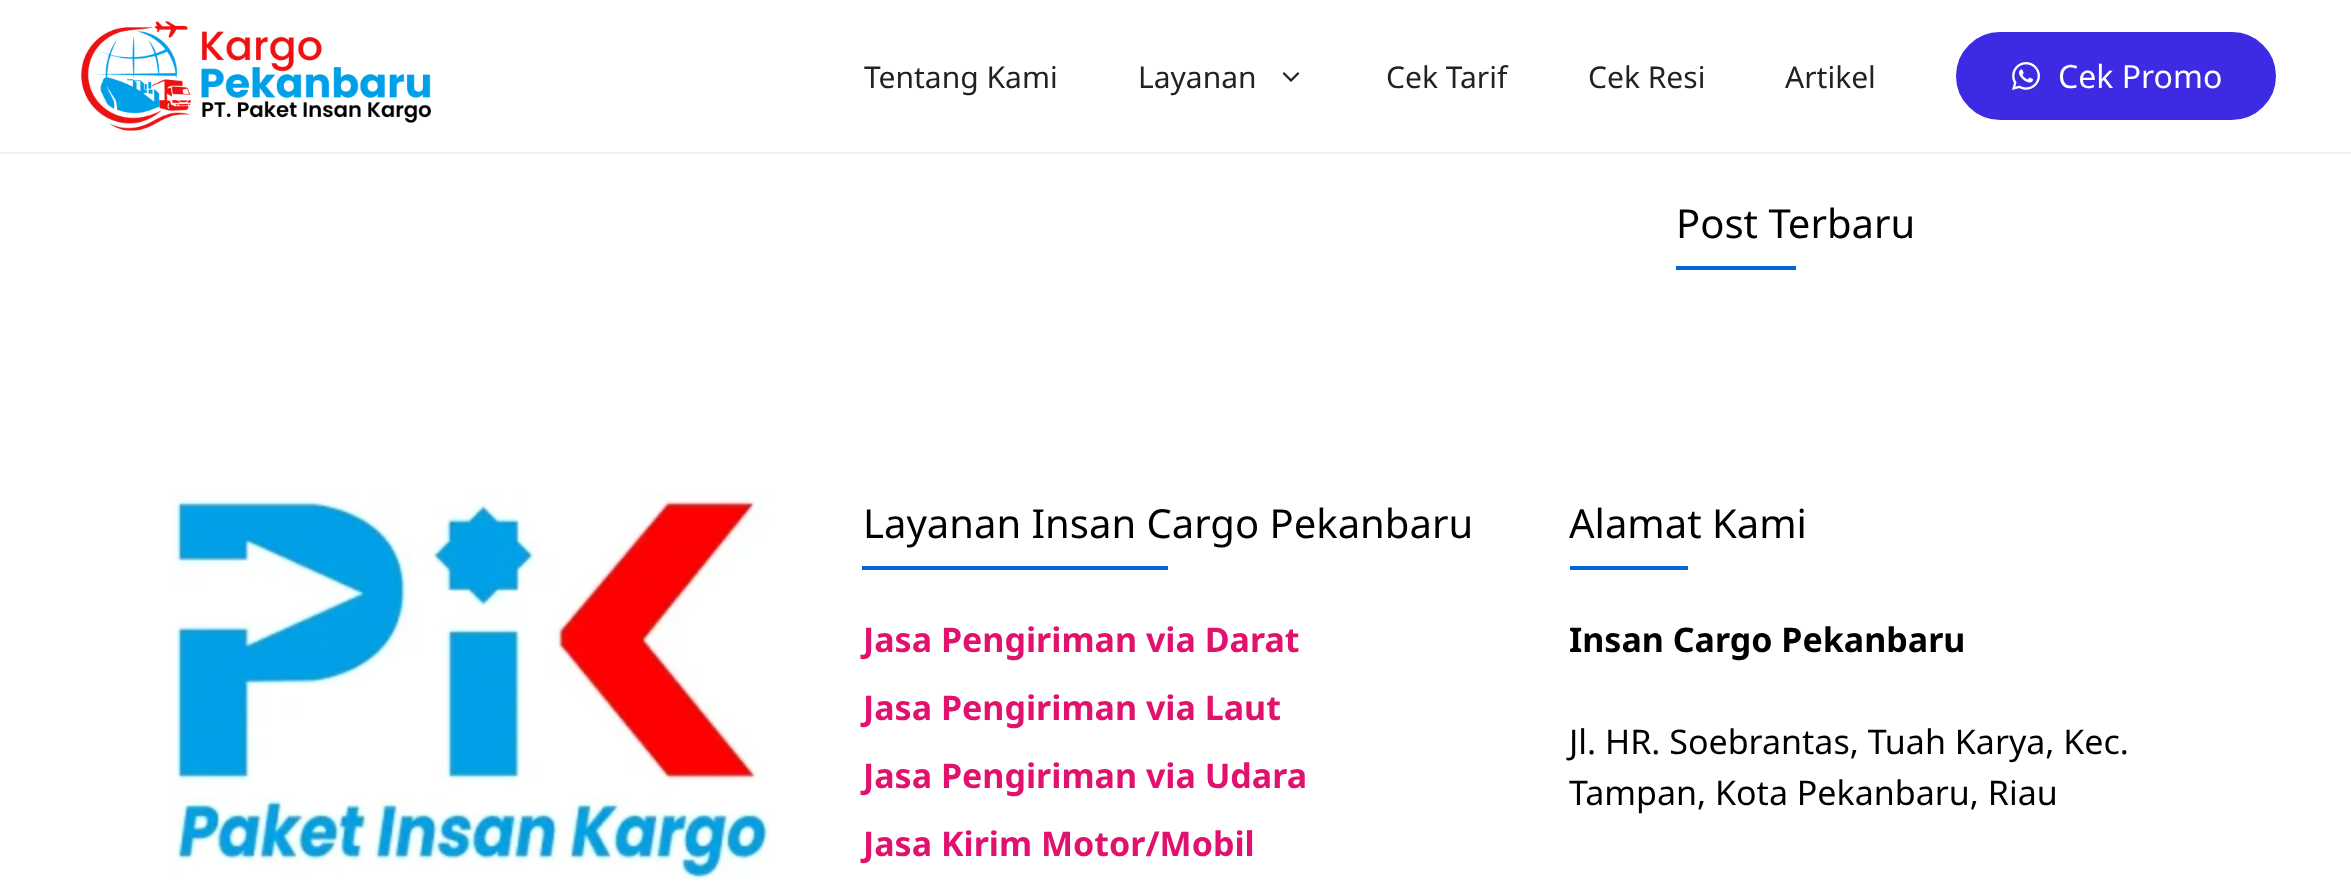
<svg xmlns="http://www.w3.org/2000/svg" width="2351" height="886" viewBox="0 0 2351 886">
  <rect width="100%" height="100%" fill="#fff"/>
  <path d="M0 152h2351v2H0z" fill="#f1f1f1"/>
  <image x="81" y="21" width="350" height="110" href="img/1.png"/>
  <image x="1282" y="72" width="18" height="10" href="img/2.png"/>
  <rect x="1958" y="34" width="316" height="84" rx="42" fill="#3d2be3" stroke="#3d2be3" stroke-width="4"/>
  <image x="2012" y="62" width="28" height="28" href="img/3.png"/>
  <path d="M1676 266h120v4H1676z" fill="#0366d6"/>
  <image x="170" y="494" width="600" height="386" href="img/4.png"/>
  <path d="M862 566h306v4H862z" fill="#0366d6"/>
  <path d="M1570 566h118v4H1570z" fill="#0366d6"/>
  <g font-family="Noto Sans" font-size="30" fill="#222">
    <text x="864" y="88">Tentang Kami</text>
    <text x="1138" y="88">Layanan</text>
    <text x="1386" y="88">Cek Tarif</text>
    <text x="1588" y="88">Cek Resi</text>
    <text x="1785" y="88">Artikel</text>
  </g>
  <text x="2058" y="88" font-family="Noto Sans" font-size="32" fill="#fff">Cek Promo</text>
  <g font-family="Noto Sans" font-size="40" fill="#000">
    <text x="1676" y="238">Post Terbaru</text>
    <text x="863" y="538">Layanan Insan Cargo Pekanbaru</text>
  </g>
  <g font-family="Noto Sans" font-size="34" font-weight="bold" fill="#e1126e">
    <text x="863" y="652">Jasa Pengiriman via Darat</text>
    <text x="863" y="720">Jasa Pengiriman via Laut</text>
    <text x="863" y="788">Jasa Pengiriman via Udara</text>
    <text x="863" y="856">Jasa Kirim Motor/Mobil</text>
  </g>
  <text x="1569" y="538" font-family="Noto Sans" font-size="40" fill="#000">Alamat Kami</text>
  <text x="1569" y="652" font-family="Noto Sans" font-size="34" font-weight="bold" fill="#000">Insan Cargo Pekanbaru</text>
  <g font-family="Noto Sans" font-size="34" fill="#000">
    <text x="1569" y="754">Jl. HR. Soebrantas, Tuah Karya, Kec.</text>
    <text x="1569" y="805">Tampan, Kota Pekanbaru, Riau</text>
  </g>
</svg>
